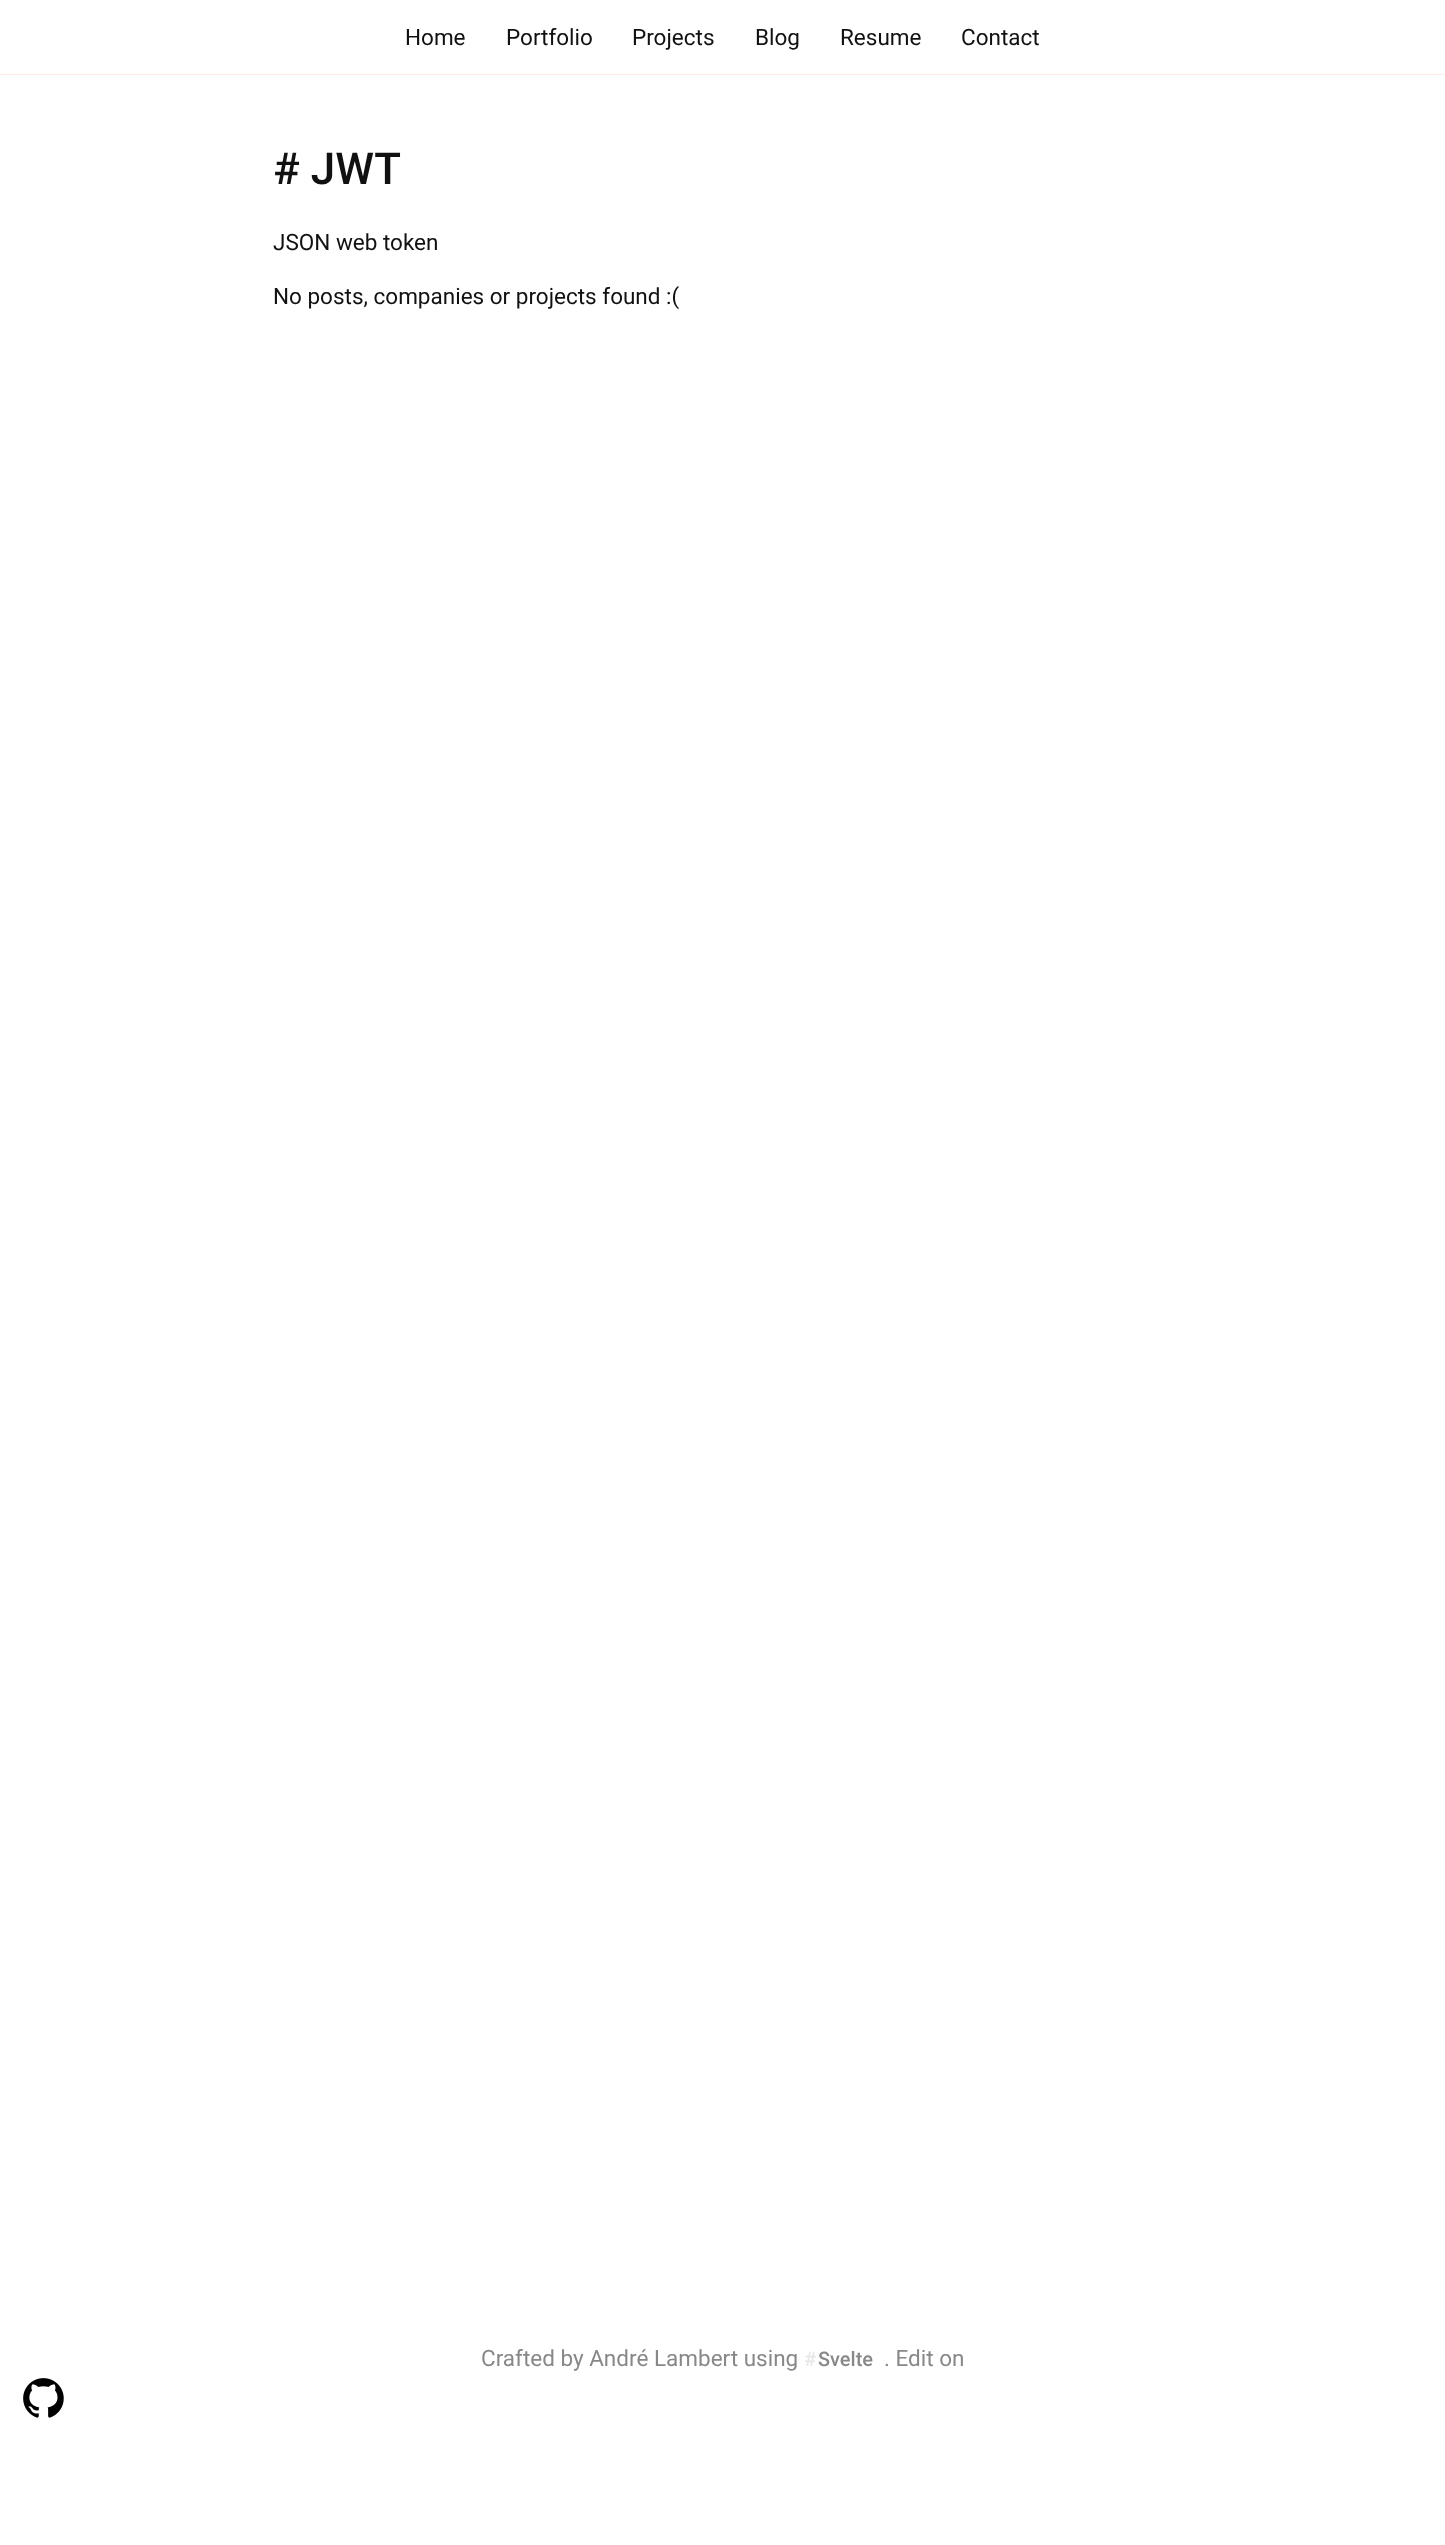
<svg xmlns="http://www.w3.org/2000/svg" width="1445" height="2545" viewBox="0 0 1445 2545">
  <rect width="100%" height="100%" fill="#fff"/>
  <path d="M0 74h1445v1H0z" fill="#ffece6"/>
  <image x="23" y="2378" width="41" height="40" href="img/1.png"/>
  <g font-family="Roboto" font-size="22.5" fill="#111">
    <text x="405" y="45">Home</text>
    <text x="506" y="45">Portfolio</text>
    <text x="632" y="45">Projects</text>
    <text x="755" y="45">Blog</text>
    <text x="840" y="45">Resume</text>
    <text x="961" y="45">Contact</text>
  </g>
  <text x="273" y="184" font-family="Roboto" font-size="44" font-weight="500" fill="#111"># JWT</text>
  <g font-family="Roboto" font-size="22.5" fill="#111">
    <text x="273" y="250">JSON web token</text>
    <text x="273" y="304">No posts, companies or projects found :(</text>
  </g>
  <text x="481" y="2366" font-family="Roboto" font-size="22.5" fill="#888">Crafted by André Lambert using</text>
  <text x="804" y="2366" font-family="Roboto" font-size="20" font-weight="500" fill="#e7e7e7">#</text>
  <text x="818" y="2366" font-family="Roboto" font-size="20" font-weight="500" fill="#888">Svelte</text>
  <text x="884" y="2366" font-family="Roboto" font-size="22.5" fill="#888">. Edit on</text>
</svg>
